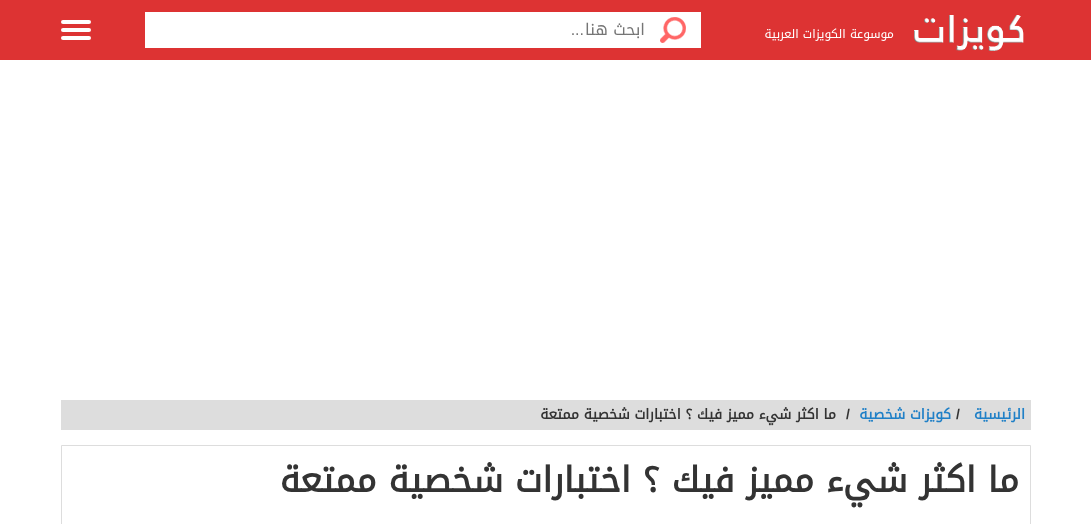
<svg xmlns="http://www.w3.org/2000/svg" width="1091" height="524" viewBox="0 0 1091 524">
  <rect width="100%" height="100%" fill="#fff"/>
  <path d="M0 0h1091v60H0z" fill="#d33"/>
  <image x="914" y="15" width="110" height="36" href="img/1.png"/>
  <path d="M145 12h556v36H145z" fill="#fff"/>
  <image x="660" y="17" width="26" height="26" href="img/2.png"/>
  <rect x="61" y="20" width="30" height="4" rx="2" fill="#fff"/>
  <rect x="61" y="28" width="30" height="4" rx="2" fill="#fff"/>
  <rect x="61" y="36" width="30" height="4" rx="2" fill="#fff"/>
  <path d="M61 400h970v30H61z" fill="#ddd"/>
  <path d="M61.5 445.5h969v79H61.5z" fill="none" stroke="#ddd"/>
  <text x="894" y="38" font-family="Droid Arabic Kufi" font-size="12" direction="rtl" fill="#fff">موسوعة الكويزات العربية</text>
  <text x="645" y="35" font-family="Droid Arabic Kufi" font-size="16" direction="rtl" fill="#757575">ابحث هنا</text>
  <text x="584" y="35" font-family="Liberation Sans" font-size="16" direction="rtl" fill="#757575">...</text>
  <text x="1025" y="419" font-family="Droid Arabic Kufi" font-size="14" font-weight="bold" direction="rtl" fill="#2080c7">الرئيسية</text>
  <text x="956" y="419" font-family="Liberation Sans" font-size="14" font-weight="bold" fill="#333">/</text>
  <text x="951" y="419" font-family="Droid Arabic Kufi" font-size="14" font-weight="bold" direction="rtl" fill="#2080c7">كويزات شخصية</text>
  <text x="846" y="419" font-family="Liberation Sans" font-size="14" font-weight="bold" fill="#333">/</text>
  <text x="836" y="419" font-family="Droid Arabic Kufi" font-size="14" font-weight="bold" direction="rtl" fill="#333">ما اكثر شيء مميز فيك ؟ اختبارات شخصية ممتعة</text>
  <text x="1019" y="492" font-family="Droid Arabic Kufi" font-size="35" font-weight="bold" direction="rtl" fill="#333">ما اكثر شيء مميز فيك ؟ اختبارات شخصية ممتعة</text>
</svg>
